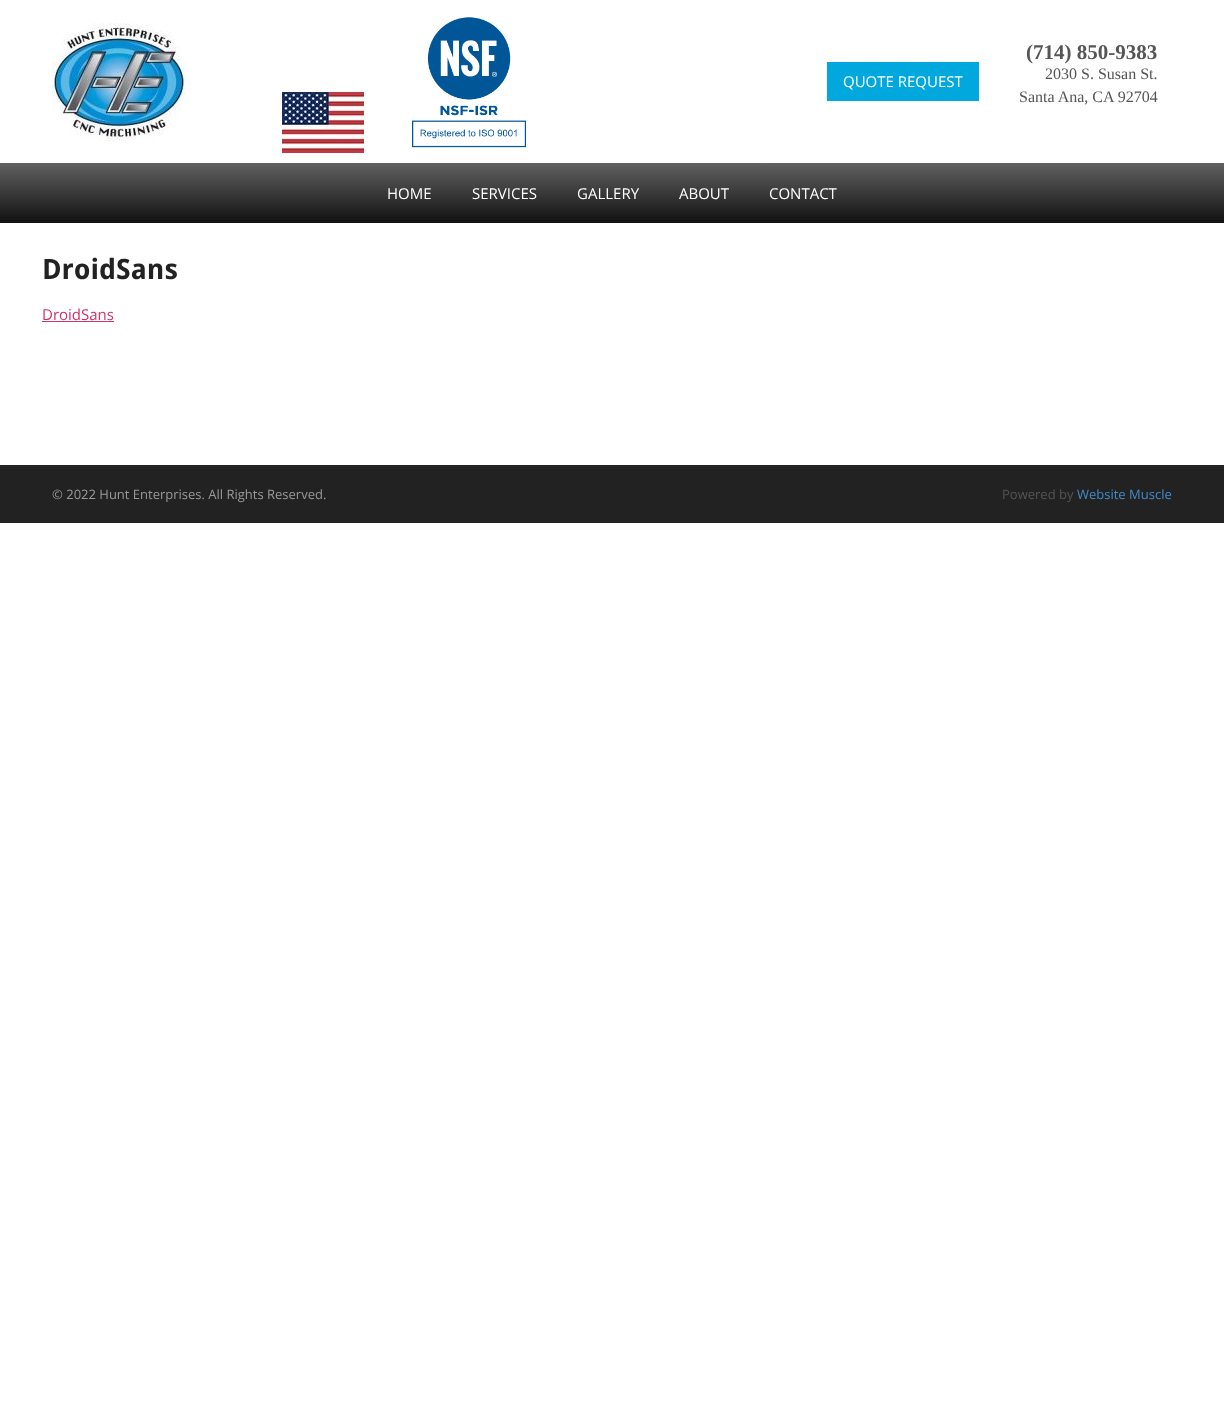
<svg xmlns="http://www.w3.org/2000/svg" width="1224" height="1420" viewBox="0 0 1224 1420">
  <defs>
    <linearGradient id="g1" gradientUnits="userSpaceOnUse" x1="612" y1="163" x2="612" y2="223"><stop offset="0" stop-color="#616161"/><stop offset="1" stop-color="#111"/></linearGradient>
  </defs>
  <rect width="100%" height="100%" fill="#fff"/>
  <image x="52" y="23" width="134" height="118" href="img/1.png"/>
  <image x="282" y="92" width="82" height="61" href="img/2.png"/>
  <image x="411" y="17" width="116" height="131" href="img/3.png"/>
  <path d="M827 62h152v39H827z" fill="#00a8de"/>
  <path d="M0 163h1224v60H0z" fill="url(#g1)"/>
  <path d="M42 321h72v1H42z" fill="#c36"/>
  <path d="M0 465h1224v58H0z" fill="#222"/>
  <text x="843" y="87" font-family="Open Sans" font-size="15" fill="#fff">QUOTE REQUEST</text>
  <text x="1026" y="59" font-family="Liberation Serif" font-size="21" font-weight="bold" fill="#555">(714) 850-9383</text>
  <g font-family="Liberation Serif" font-size="16" fill="#555">
    <text x="1045" y="79">2030 S. Susan St.</text>
    <text x="1019" y="102">Santa Ana, CA 92704</text>
  </g>
  <g font-family="Open Sans" font-size="15" fill="#fff">
    <text x="387" y="199">HOME</text>
    <text x="472" y="199">SERVICES</text>
    <text x="577" y="199">GALLERY</text>
    <text x="679" y="199">ABOUT</text>
    <text x="769" y="199">CONTACT</text>
  </g>
  <text x="42" y="279" font-family="Droid Sans" font-size="28" font-weight="bold" fill="#222">DroidSans</text>
  <text x="42" y="320" font-family="Open Sans" font-size="15" fill="#c36">DroidSans</text>
  <text x="52" y="499" font-family="Open Sans" font-size="13" fill="#999">© 2022 Hunt Enterprises. All Rights Reserved.</text>
  <text x="1002" y="499" font-family="Open Sans" font-size="13" fill="#555">Powered by</text>
  <text x="1077" y="499" font-family="Open Sans" font-size="13" fill="#428bca">Website Muscle</text>
</svg>
